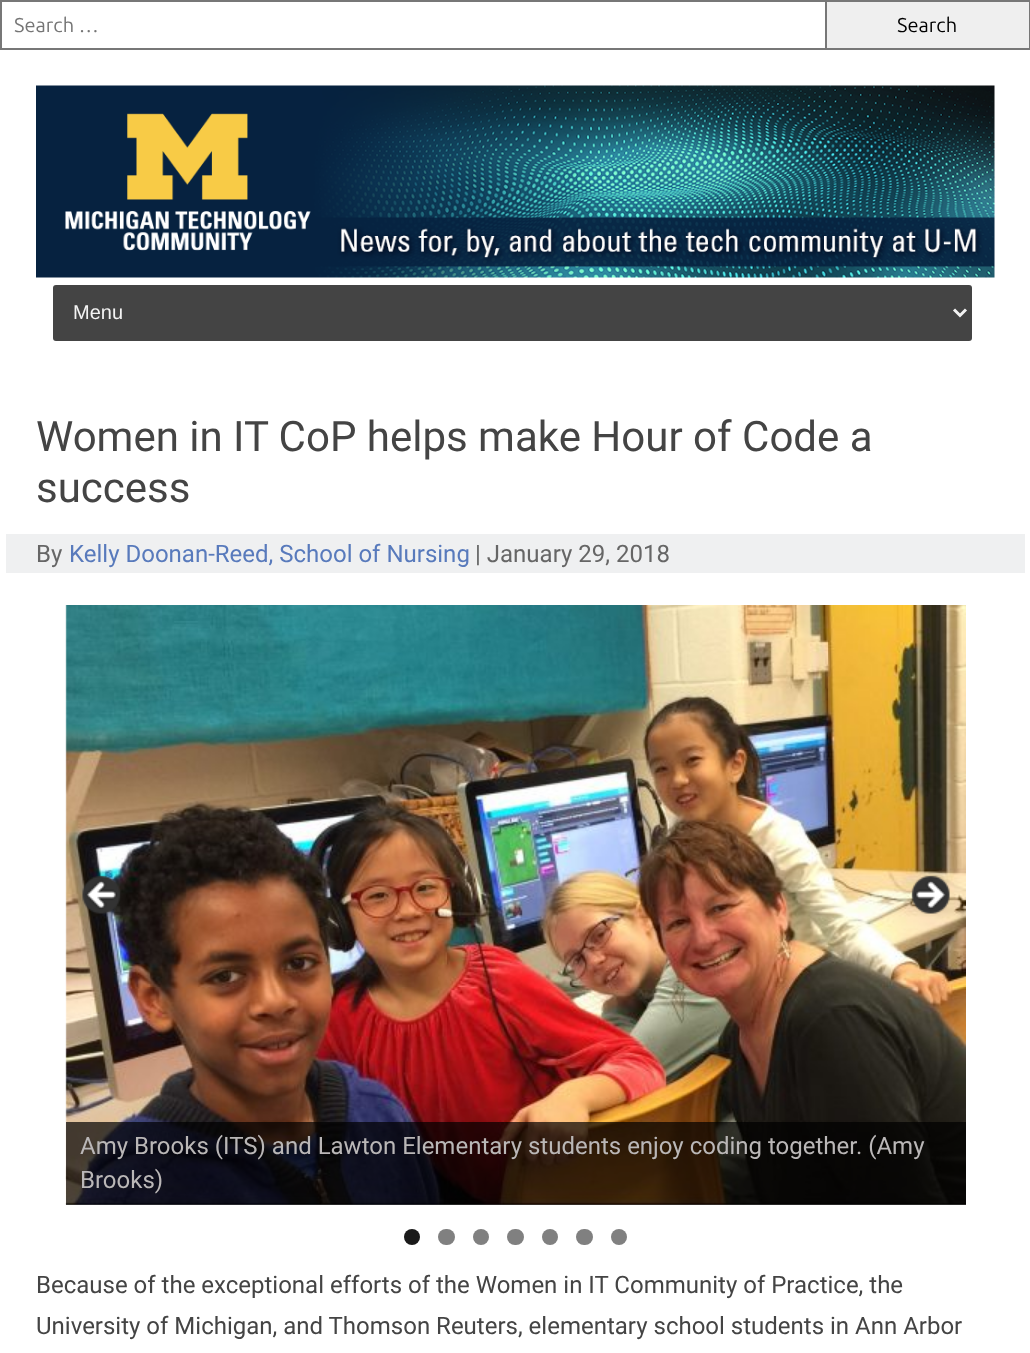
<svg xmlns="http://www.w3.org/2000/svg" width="1030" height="1353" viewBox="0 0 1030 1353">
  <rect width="100%" height="100%" fill="#fff"/>
  <path d="M0 0h825v2H0z" fill="#777"/>
  <path d="M0 48h825v2H0z" fill="#777"/>
  <path d="M0 0h2v50H0z" fill="#777"/>
  <path d="M826 1h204v48H826z" fill="#efefef" stroke="#777" stroke-width="2"/>
  <image x="36" y="85" width="959" height="193" href="img/1.png"/>
  <rect x="53" y="285" width="919" height="56" rx="3" fill="#444"/>
  <path d="M954 309.5L960 315.5L966 309.5" fill="none" stroke="#f3f3f3" stroke-width="3"/>
  <path d="M6 534h1019v39H6z" fill="#eff0f1"/>
  <image x="65" y="605" width="901" height="600" href="img/4.png"/>
  <image x="82" y="875" width="39" height="39" href="img/2.png"/>
  <image x="911" y="875" width="39" height="39" href="img/3.png"/>
  <path d="M66 1122h900v83H66z" fill="#000000b3"/>
  <circle cx="412" cy="1237" r="8" fill="#1a1a1a"/>
  <rect x="438" y="1229" width="17" height="16" rx="8" fill="#808080"/>
  <circle cx="481" cy="1237" r="8" fill="#808080"/>
  <rect x="507" y="1229" width="17" height="16" rx="8" fill="#808080"/>
  <circle cx="550" cy="1237" r="8" fill="#808080"/>
  <rect x="576" y="1229" width="17" height="16" rx="8" fill="#808080"/>
  <circle cx="619" cy="1237" r="8" fill="#808080"/>
  <text x="14" y="32" font-family="Ubuntu" font-size="20" fill="#757575">Search …</text>
  <text x="897" y="32" font-family="Ubuntu" font-size="20" fill="#000">Search</text>
  <text x="73" y="319" font-family="Liberation Sans" font-size="20" fill="#f3f3f3">Menu</text>
  <g font-family="Roboto" font-size="42" fill="#444">
    <text x="36" y="451">Women in IT CoP helps make Hour of Code a</text>
    <text x="36" y="502">success</text>
  </g>
  <text x="36" y="562" font-family="Roboto" font-size="24" fill="#666">By</text>
  <text x="69" y="562" font-family="Roboto" font-size="24" fill="#587abc">Kelly Doonan-Reed, School of Nursing</text>
  <text x="475" y="562" font-family="Roboto" font-size="24" fill="#666">| January 29, 2018</text>
  <g font-family="Roboto" font-size="24" fill="#bab7b7">
    <text x="80" y="1154">Amy Brooks (ITS) and Lawton Elementary students enjoy coding together. (Amy</text>
    <text x="80" y="1188">Brooks)</text>
  </g>
  <g font-family="Roboto" font-size="24" fill="#444">
    <text x="36" y="1293">Because of the exceptional efforts of the Women in IT Community of Practice, the</text>
    <text x="36" y="1334">University of Michigan, and Thomson Reuters, elementary school students in Ann Arbor</text>
  </g>
</svg>
